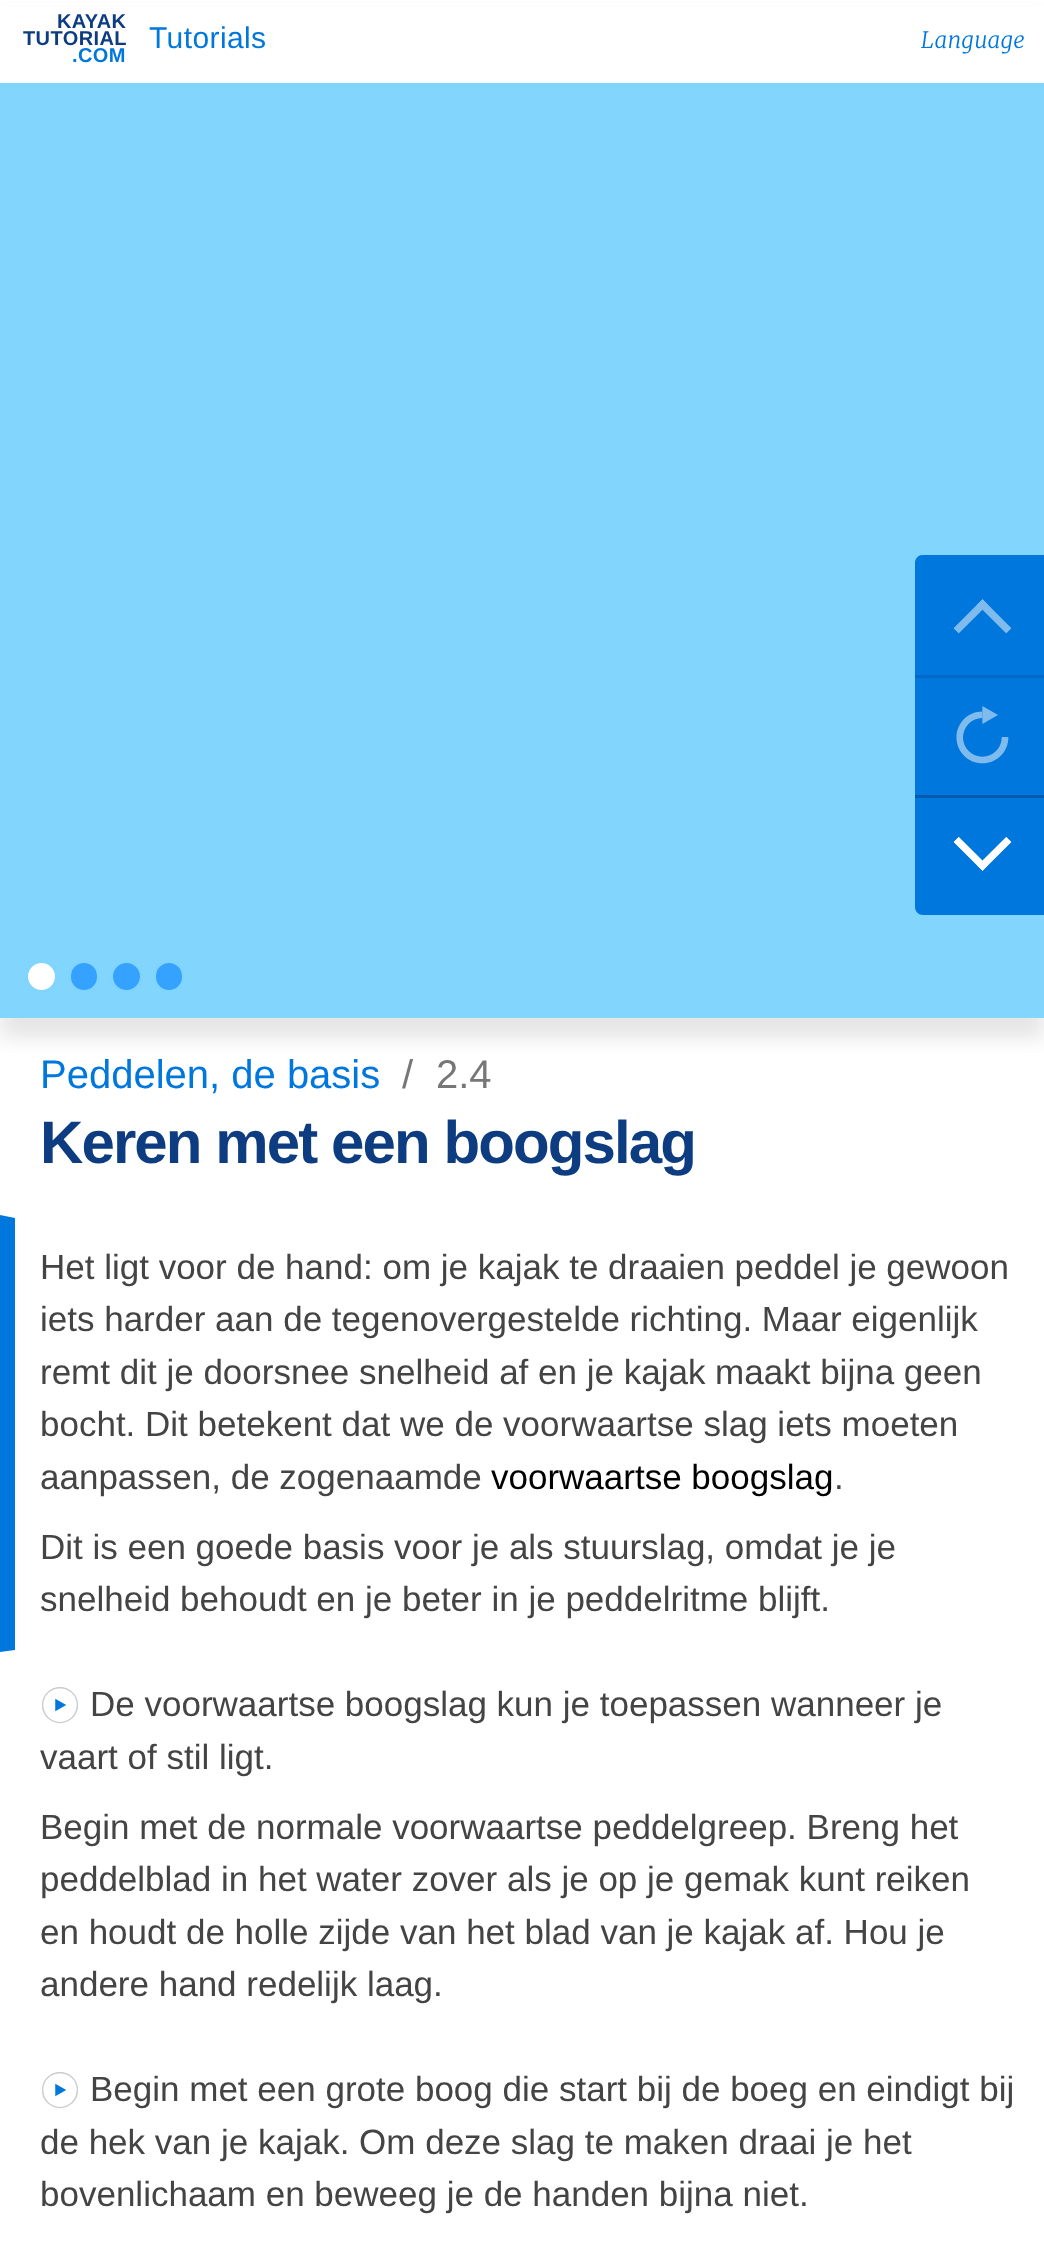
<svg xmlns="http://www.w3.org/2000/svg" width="1044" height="2251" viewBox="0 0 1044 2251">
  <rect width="100%" height="100%" fill="#fff"/>
  <path d="M0 20h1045v1018H0z" fill="#0000001a" filter="blur(10px)"/>
  <path d="M0 7h1044v76H0z" fill="#fff"/>
  <path d="M0 83h1044v3H0z" fill="#80d5ff"/>
  <path d="M0 86h1044v932H0z" fill="#82d5fd"/>
  <circle cx="41.5" cy="976.5" r="15" fill="#fff" stroke="#80d5ff" stroke-width="3"/>
  <rect x="69.5" y="961.5" width="29" height="30" rx="14.5" fill="#35a2ff" stroke="#80d5ff" stroke-width="3"/>
  <circle cx="126.5" cy="976.5" r="15" fill="#35a2ff" stroke="#80d5ff" stroke-width="3"/>
  <rect x="154.5" y="961.5" width="29" height="30" rx="14.5" fill="#35a2ff" stroke="#80d5ff" stroke-width="3"/>
  <path d="M923 555H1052V915H923C918.5 915 915 911.5 915 907V563C915 558.5 918.5 555 923 555Z" fill="#07d"/>
  <path d="M923 555H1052V678H915V563C915 558.5 918.5 555 923 555Z" fill="#0077dd80"/>
  <image x="953" y="599" width="59" height="35" href="img/1.png"/>
  <path d="M915 675h129v3H915z" fill="#075aaf"/>
  <path d="M915 675h129v3H915z" fill="#0077dd80"/>
  <image x="956" y="706" width="53" height="58" href="img/2.png"/>
  <path d="M915 795h129v3H915z" fill="#075aaf"/>
  <image x="953" y="837" width="59" height="34" href="img/3.png"/>
  <path d="M0 1652V1215L15 1218V1650Z" fill="#07d"/>
  <image x="42" y="1687" width="36" height="37" href="img/4.png"/>
  <image x="42" y="2072" width="36" height="37" href="img/4.png"/>
  <g font-family="Liberation Sans" font-size="20" font-weight="bold" letter-spacing="0.4" fill="#0d3d80">
    <text x="57" y="28">KAYAK</text>
    <text x="23" y="45">TUTORIAL</text>
  </g>
  <text x="72" y="62" font-family="Liberation Sans" font-size="20" font-weight="bold" letter-spacing="0.4" fill="#07d">.COM</text>
  <text x="149" y="48" font-family="Liberation Sans" font-size="30" letter-spacing="0.4" fill="#07d">Tutorials</text>
  <text x="921" y="48" font-family="Merriweather" font-size="22.5" font-weight="300" font-style="italic" letter-spacing="0.4" fill="#07d">Language</text>
  <text x="40" y="1088" font-family="Liberation Sans" font-size="40" fill="#07d">Peddelen, de basis</text>
  <g font-family="Liberation Sans" font-size="40" fill="#777">
    <text x="402" y="1088">/</text>
    <text x="436" y="1088">2.4</text>
  </g>
  <text x="40" y="1163" font-family="Liberation Sans" font-size="60" font-weight="bold" letter-spacing="-1.9" fill="#0d3d80">Keren met een boogslag</text>
  <g font-family="Liberation Sans" font-size="35" fill="#444">
    <text x="40" y="1279">Het ligt voor de hand: om je kajak te draaien peddel je gewoon</text>
    <text x="40" y="1331">iets harder aan de tegenovergestelde richting. Maar eigenlijk</text>
    <text x="40" y="1384">remt dit je doorsnee snelheid af en je kajak maakt bijna geen</text>
    <text x="40" y="1436">bocht. Dit betekent dat we de voorwaartse slag iets moeten</text>
    <text x="40" y="1489">aanpassen, de zogenaamde</text>
  </g>
  <text x="491" y="1489" font-family="Liberation Sans" font-size="35" fill="#000">voorwaartse boogslag</text>
  <g font-family="Liberation Sans" font-size="35" fill="#444">
    <text x="834" y="1489">.</text>
    <text x="40" y="1559">Dit is een goede basis voor je als stuurslag, omdat je je</text>
    <text x="40" y="1611">snelheid behoudt en je beter in je peddelritme blijft.</text>
    <text x="90" y="1716">De voorwaartse boogslag kun je toepassen wanneer je</text>
    <text x="40" y="1769">vaart of stil ligt.</text>
    <text x="40" y="1839">Begin met de normale voorwaartse peddelgreep. Breng het</text>
    <text x="40" y="1891">peddelblad in het water zover als je op je gemak kunt reiken</text>
    <text x="40" y="1944">en houdt de holle zijde van het blad van je kajak af. Hou je</text>
    <text x="40" y="1996">andere hand redelijk laag.</text>
    <text x="90" y="2101">Begin met een grote boog die start bij de boeg en eindigt bij</text>
    <text x="40" y="2154">de hek van je kajak. Om deze slag te maken draai je het</text>
    <text x="40" y="2206">bovenlichaam en beweeg je de handen bijna niet.</text>
  </g>
</svg>
